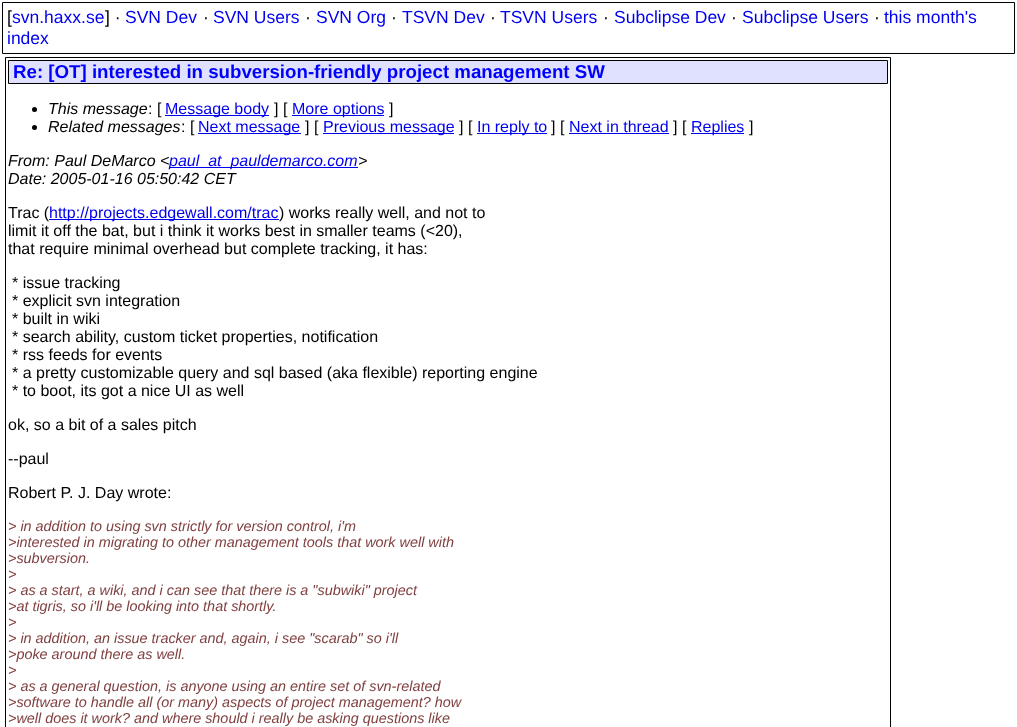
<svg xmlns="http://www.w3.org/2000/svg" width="1017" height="727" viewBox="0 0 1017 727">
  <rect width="100%" height="100%" fill="#fff"/>
  <path d="M2.5 2.5h1012v51H2.5z" fill="none" stroke="#000"/>
  <path d="M5.5 57.5h885v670H5.5z" fill="none" stroke="#000"/>
  <path d="M8.5 60.5h879v23H8.5z" fill="#e0e0ff" stroke="#000"/>
  <circle cx="34.5" cy="109.5" r="2.5" fill="#000"/>
  <path d="M165 115h104v1H165z" fill="#00e"/>
  <path d="M292 115h92v1H292z" fill="#00e"/>
  <circle cx="34.5" cy="127.5" r="2.5" fill="#000"/>
  <path d="M198 133h103v1H198z" fill="#00e"/>
  <path d="M323 133h131v1H323z" fill="#00e"/>
  <path d="M477 133h70v1H477z" fill="#00e"/>
  <path d="M569 133h100v1H569z" fill="#00e"/>
  <path d="M691 133h53v1H691z" fill="#00e"/>
  <path d="M169 167h189v1H169z" fill="#00e"/>
  <text x="7" y="23" font-family="Liberation Sans" font-size="17.5" fill="#000">[</text>
  <text x="12" y="23" font-family="Liberation Sans" font-size="17.5" fill="#00e">svn.haxx.se</text>
  <text x="105" y="23" font-family="Liberation Sans" font-size="17.5" fill="#000">] ·</text>
  <text x="125" y="23" font-family="Liberation Sans" font-size="17.5" fill="#00e">SVN Dev</text>
  <text x="203" y="23" font-family="Liberation Sans" font-size="17.5" fill="#000">·</text>
  <text x="213" y="23" font-family="Liberation Sans" font-size="17.5" fill="#00e">SVN Users</text>
  <text x="305" y="23" font-family="Liberation Sans" font-size="17.5" fill="#000">·</text>
  <text x="316" y="23" font-family="Liberation Sans" font-size="17.5" fill="#00e">SVN Org</text>
  <text x="391" y="23" font-family="Liberation Sans" font-size="17.5" fill="#000">·</text>
  <text x="402" y="23" font-family="Liberation Sans" font-size="17.5" fill="#00e">TSVN Dev</text>
  <text x="490" y="23" font-family="Liberation Sans" font-size="17.5" fill="#000">·</text>
  <text x="500" y="23" font-family="Liberation Sans" font-size="17.5" fill="#00e">TSVN Users</text>
  <text x="603" y="23" font-family="Liberation Sans" font-size="17.5" fill="#000">·</text>
  <text x="614" y="23" font-family="Liberation Sans" font-size="17.5" fill="#00e">Subclipse Dev</text>
  <text x="731" y="23" font-family="Liberation Sans" font-size="17.5" fill="#000">·</text>
  <text x="742" y="23" font-family="Liberation Sans" font-size="17.5" fill="#00e">Subclipse Users</text>
  <text x="874" y="23" font-family="Liberation Sans" font-size="17.5" fill="#000">·</text>
  <g font-family="Liberation Sans" font-size="17.5" fill="#00e">
    <text x="884" y="23">this month's</text>
    <text x="7" y="44">index</text>
  </g>
  <text x="13" y="78" font-family="Liberation Sans" font-size="18.7" font-weight="bold" fill="#00f">Re: [OT] interested in subversion-friendly project management SW</text>
  <text x="48" y="114" font-family="Liberation Sans" font-size="16" font-style="italic" fill="#000">This message</text>
  <text x="148" y="114" font-family="Liberation Sans" font-size="16" fill="#000">: [</text>
  <text x="165" y="114" font-family="Liberation Sans" font-size="16" fill="#00e">Message body</text>
  <text x="274" y="114" font-family="Liberation Sans" font-size="16" fill="#000">] [</text>
  <text x="292" y="114" font-family="Liberation Sans" font-size="16" fill="#00e">More options</text>
  <text x="389" y="114" font-family="Liberation Sans" font-size="16" fill="#000">]</text>
  <text x="48" y="132" font-family="Liberation Sans" font-size="16" font-style="italic" fill="#000">Related messages</text>
  <text x="181" y="132" font-family="Liberation Sans" font-size="16" fill="#000">: [</text>
  <text x="198" y="132" font-family="Liberation Sans" font-size="16" fill="#00e">Next message</text>
  <text x="305" y="132" font-family="Liberation Sans" font-size="16" fill="#000">] [</text>
  <text x="323" y="132" font-family="Liberation Sans" font-size="16" fill="#00e">Previous message</text>
  <text x="459" y="132" font-family="Liberation Sans" font-size="16" fill="#000">] [</text>
  <text x="477" y="132" font-family="Liberation Sans" font-size="16" fill="#00e">In reply to</text>
  <text x="551" y="132" font-family="Liberation Sans" font-size="16" fill="#000">] [</text>
  <text x="569" y="132" font-family="Liberation Sans" font-size="16" fill="#00e">Next in thread</text>
  <text x="673" y="132" font-family="Liberation Sans" font-size="16" fill="#000">] [</text>
  <text x="691" y="132" font-family="Liberation Sans" font-size="16" fill="#00e">Replies</text>
  <text x="749" y="132" font-family="Liberation Sans" font-size="16" fill="#000">]</text>
  <text x="8" y="166" font-family="Liberation Sans" font-size="16" font-style="italic" fill="#000">From: Paul DeMarco &lt;</text>
  <text x="169" y="166" font-family="Liberation Sans" font-size="16" font-style="italic" fill="#00e">paul_at_pauldemarco.com</text>
  <g font-family="Liberation Sans" font-size="16" font-style="italic" fill="#000">
    <text x="358" y="166">&gt;</text>
    <text x="8" y="184">Date: 2005-01-16 05:50:42 CET</text>
  </g>
  <text x="8" y="218" font-family="Liberation Sans" font-size="16" fill="#000">Trac (</text>
  <path d="M49 219h230v1H49z" fill="#00e"/>
  <text x="49" y="218" font-family="Liberation Sans" font-size="16" fill="#00e">http://projects.edgewall.com/trac</text>
  <g font-family="Liberation Sans" font-size="16" fill="#000">
    <text x="279" y="218">) works really well, and not to</text>
    <text x="8" y="236">limit it off the bat, but i think it works best in smaller teams (&lt;20),</text>
    <text x="8" y="254">that require minimal overhead but complete tracking, it has:</text>
    <text x="12" y="288">* issue tracking</text>
    <text x="12" y="306">* explicit svn integration</text>
    <text x="12" y="324">* built in wiki</text>
    <text x="12" y="342">* search ability, custom ticket properties, notification</text>
    <text x="12" y="360">* rss feeds for events</text>
    <text x="12" y="378">* a pretty customizable query and sql based (aka flexible) reporting engine</text>
    <text x="12" y="396">* to boot, its got a nice UI as well</text>
    <text x="8" y="430">ok, so a bit of a sales pitch</text>
    <text x="8" y="464">--paul</text>
    <text x="8" y="498">Robert P. J. Day wrote:</text>
  </g>
  <g font-family="Liberation Sans" font-size="14.4" font-style="italic" fill="#804040">
    <text x="8" y="531">&gt; in addition to using svn strictly for version control, i'm</text>
    <text x="8" y="547">&gt;interested in migrating to other management tools that work well with</text>
    <text x="8" y="563">&gt;subversion.</text>
    <text x="8" y="579">&gt;</text>
    <text x="8" y="595">&gt; as a start, a wiki, and i can see that there is a "subwiki" project</text>
    <text x="8" y="611">&gt;at tigris, so i'll be looking into that shortly.</text>
    <text x="8" y="627">&gt;</text>
    <text x="8" y="643">&gt; in addition, an issue tracker and, again, i see "scarab" so i'll</text>
    <text x="8" y="659">&gt;poke around there as well.</text>
    <text x="8" y="675">&gt;</text>
    <text x="8" y="691">&gt; as a general question, is anyone using an entire set of svn-related</text>
    <text x="8" y="707">&gt;software to handle all (or many) aspects of project management? how</text>
    <text x="8" y="723">&gt;well does it work? and where should i really be asking questions like</text>
  </g>
</svg>
